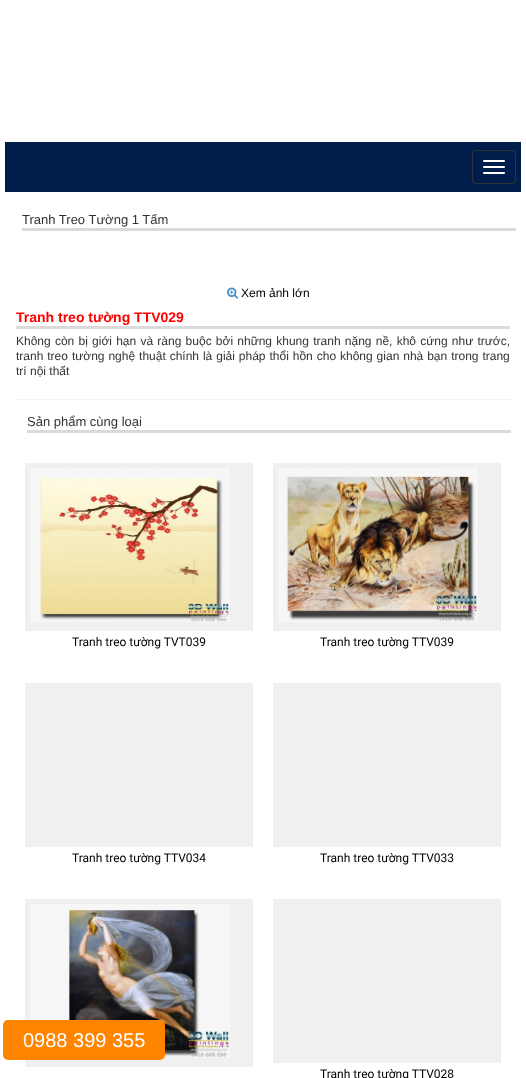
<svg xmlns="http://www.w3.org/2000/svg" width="526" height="1078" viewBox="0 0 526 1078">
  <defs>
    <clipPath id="clip1"><path d="M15 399h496v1H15z"/></clipPath>
  </defs>
  <rect width="100%" height="100%" fill="#fff"/>
  <path d="M5 142h516v50H5z" fill="#011d4c"/>
  <rect x="472.5" y="150.5" width="43" height="33" rx="3.5" fill="none" stroke="#333"/>
  <rect x="483" y="160" width="22" height="2" rx="1" fill="#fff"/>
  <rect x="483" y="166" width="22" height="2" rx="1" fill="#fff"/>
  <rect x="483" y="172" width="22" height="2" rx="1" fill="#fff"/>
  <path d="M22 228h494v3H22z" fill="#dadada"/>
  <g clip-path="url(#clip1)">
    <path d="M15 237h496v163H15z" fill="#0000000d" filter="blur(0.5px)"/>
  </g>
  <image x="227" y="287" width="12" height="12" href="img/1.png"/>
  <path d="M16 326h494v3H16z" fill="#dadada"/>
  <path d="M27 430h484v3H27z" fill="#dadada"/>
  <path d="M25 463h228v168H25z" fill="#f0f0f0"/>
  <image x="30" y="468" width="200" height="154" href="img/2.png"/>
  <path d="M273 463h228v168H273z" fill="#f0f0f0"/>
  <image x="278" y="468" width="200" height="154" href="img/3.png"/>
  <path d="M25 683h228v164H25z" fill="#f0f0f0"/>
  <path d="M273 683h228v164H273z" fill="#f0f0f0"/>
  <path d="M25 899h228v168H25z" fill="#f0f0f0"/>
  <image x="30" y="904" width="200" height="154" href="img/4.png"/>
  <path d="M273 899h228v164H273z" fill="#f0f0f0"/>
  <rect x="3" y="1020" width="162" height="40" rx="5" fill="#ff8400"/>
  <text x="22" y="224" font-family="Liberation Sans" font-size="13" fill="#333">Tranh Treo Tường 1 Tấm</text>
  <text x="241" y="297" font-family="Liberation Sans" font-size="12" fill="#000">Xem ảnh lớn</text>
  <text x="16" y="322" font-family="Liberation Sans" font-size="14" font-weight="bold" fill="#f00">Tranh treo tường TTV029</text>
  <g font-family="Liberation Sans" font-size="12" fill="#333">
    <text x="16" y="345" word-spacing="0.9">Không còn bị giới hạn và ràng buộc bởi những khung tranh nặng nề, khô cứng như trước,</text>
    <text x="16" y="360" word-spacing="0.6">tranh treo tường nghệ thuật chính là giải pháp thổi hồn cho không gian nhà bạn trong trang</text>
    <text x="16" y="375">trí nội thất</text>
  </g>
  <text x="27" y="426" font-family="Liberation Sans" font-size="13" fill="#333">Sản phẩm cùng loại</text>
  <g font-family="Roboto" font-size="12" fill="#000">
    <text x="72" y="646">Tranh treo tường TVT039</text>
    <text x="320" y="646">Tranh treo tường TTV039</text>
    <text x="72" y="862">Tranh treo tường TTV034</text>
    <text x="320" y="862">Tranh treo tường TTV033</text>
    <text x="320" y="1078">Tranh treo tường TTV028</text>
  </g>
  <text x="23" y="1047" font-family="Liberation Sans" font-size="20" fill="#fff">0988 399 355</text>
</svg>
